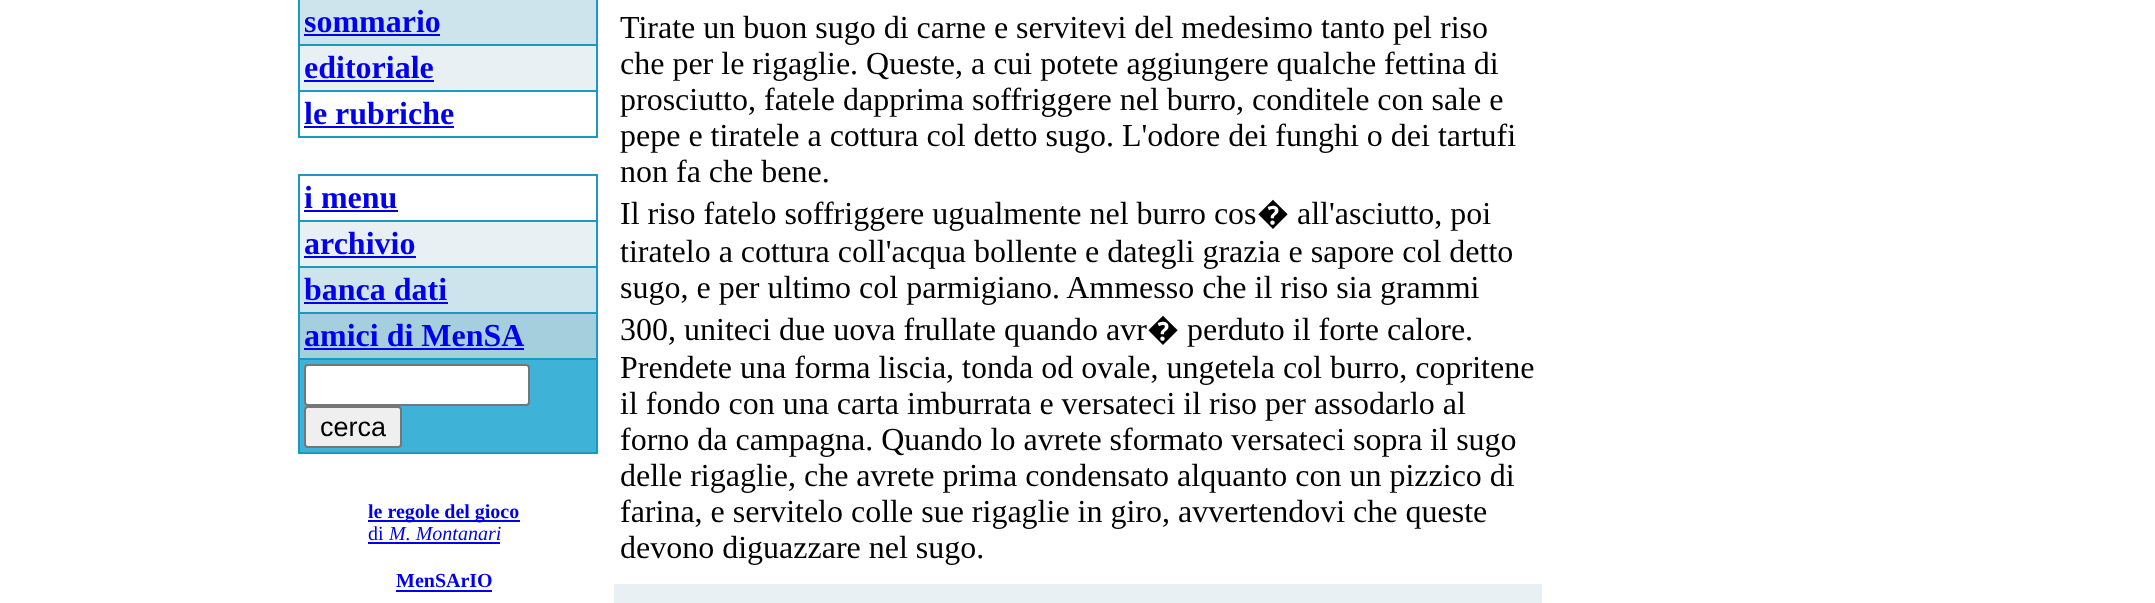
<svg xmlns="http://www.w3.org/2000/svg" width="2155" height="603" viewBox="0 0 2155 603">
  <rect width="100%" height="100%" fill="#fff"/>
  <path d="M298 0h300v138H298z" fill="#1a99c1"/>
  <path d="M300 0h296v44H300z" fill="#cde4ec"/>
  <path d="M304 34h136v2H304z" fill="#00e"/>
  <path d="M300 46h296v44H300z" fill="#e8f0f3"/>
  <path d="M304 80h130v2H304z" fill="#00e"/>
  <path d="M300 92h296v44H300z" fill="#fff"/>
  <path d="M304 126h150v2H304z" fill="#00e"/>
  <path d="M298 174h300v280H298z" fill="#1a99c1"/>
  <path d="M300 176h296v44H300z" fill="#fff"/>
  <path d="M304 210h94v2H304z" fill="#00e"/>
  <path d="M300 222h296v44H300z" fill="#e8f0f3"/>
  <path d="M304 256h112v2H304z" fill="#00e"/>
  <path d="M300 268h296v44H300z" fill="#cde4ec"/>
  <path d="M304 302h144v2H304z" fill="#00e"/>
  <path d="M300 314h296v44H300z" fill="#a6cfdd"/>
  <path d="M304 348h220v2H304z" fill="#00e"/>
  <path d="M300 360h296v92H300z" fill="#3eb2d7"/>
  <rect x="305" y="365" width="224" height="40" rx="3" fill="#fff" stroke="#767676" stroke-width="2"/>
  <rect x="305" y="407" width="96" height="40" rx="3" fill="#efefef" stroke="#767676" stroke-width="2"/>
  <path d="M368 520h152v2H368z" fill="#00e"/>
  <path d="M368 542h132v2H368z" fill="#00e"/>
  <path d="M396 590h96v2H396z" fill="#00e"/>
  <path d="M614 584h928v19H614z" fill="#e8f0f3"/>
  <g font-family="Liberation Serif" font-size="32" font-weight="bold" fill="#00e">
    <text x="304" y="32">sommario</text>
    <text x="304" y="78">editoriale</text>
    <text x="304" y="124">le rubriche</text>
    <text x="304" y="208">i menu</text>
    <text x="304" y="254">archivio</text>
    <text x="304" y="300">banca dati</text>
    <text x="304" y="346">amici di MenSA</text>
  </g>
  <text x="320" y="436" font-family="Liberation Sans" font-size="27" fill="#000">cerca</text>
  <text x="368" y="518" font-family="Liberation Serif" font-size="20" font-weight="bold" fill="#00e">le regole del gioco</text>
  <text x="368" y="540" font-family="Liberation Serif" font-size="20" fill="#00e">di</text>
  <text x="389" y="540" font-family="Liberation Serif" font-size="20" font-style="italic" fill="#00e">M. Montanari</text>
  <text x="396" y="587" font-family="Liberation Serif" font-size="20" font-weight="bold" fill="#00e">MenSArIO</text>
  <g font-family="Liberation Serif" font-size="32" fill="#000">
    <text x="620" y="38">Tirate un buon sugo di carne e servitevi del medesimo tanto pel riso</text>
    <text x="620" y="74">che per le rigaglie. Queste, a cui potete aggiungere qualche fettina di</text>
    <text x="620" y="110">prosciutto, fatele dapprima soffriggere nel burro, conditele con sale e</text>
    <text x="620" y="146">pepe e tiratele a cottura col detto sugo. L'odore dei funghi o dei tartufi</text>
    <text x="620" y="182">non fa che bene.</text>
    <text x="620" y="224">Il riso fatelo soffriggere ugualmente nel burro cos</text>
  </g>
  <text x="1257" y="224" font-family="Noto Sans" font-size="32" fill="#000">�</text>
  <g font-family="Liberation Serif" font-size="32" fill="#000">
    <text x="1297" y="224">all'asciutto, poi</text>
    <text x="620" y="262">tiratelo a cottura coll'acqua bollente e dategli grazia e sapore col detto</text>
    <text x="620" y="298">sugo, e per ultimo col parmigiano. Ammesso che il riso sia grammi</text>
    <text x="620" y="340">300, uniteci due uova frullate quando avr</text>
  </g>
  <text x="1147" y="340" font-family="Noto Sans" font-size="32" fill="#000">�</text>
  <g font-family="Liberation Serif" font-size="32" fill="#000">
    <text x="1187" y="340">perduto il forte calore.</text>
    <text x="620" y="378">Prendete una forma liscia, tonda od ovale, ungetela col burro, copritene</text>
    <text x="620" y="414">il fondo con una carta imburrata e versateci il riso per assodarlo al</text>
    <text x="620" y="450">forno da campagna. Quando lo avrete sformato versateci sopra il sugo</text>
    <text x="620" y="486">delle rigaglie, che avrete prima condensato alquanto con un pizzico di</text>
    <text x="620" y="522">farina, e servitelo colle sue rigaglie in giro, avvertendovi che queste</text>
    <text x="620" y="558">devono diguazzare nel sugo.</text>
  </g>
</svg>
